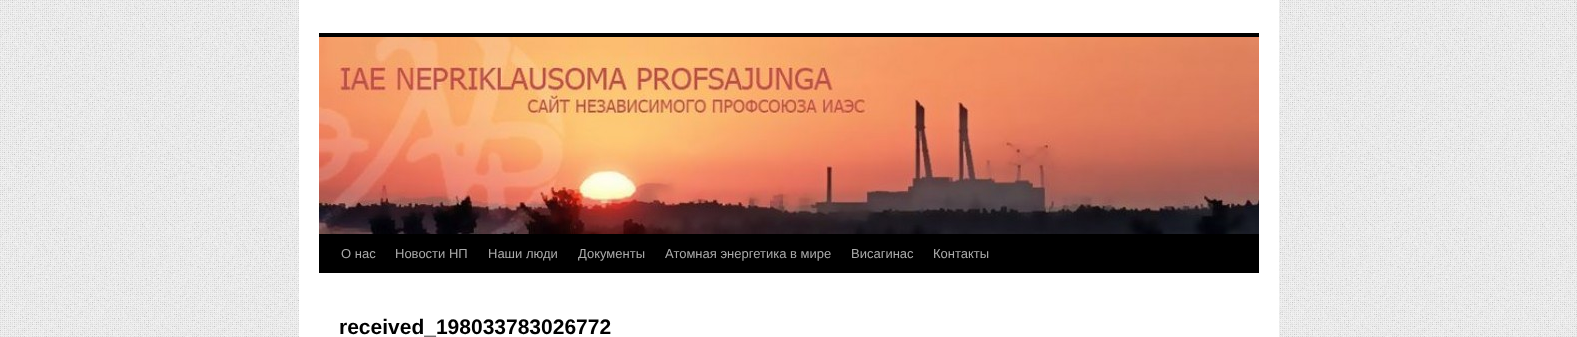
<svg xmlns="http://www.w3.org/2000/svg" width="1577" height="337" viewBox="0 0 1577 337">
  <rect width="100%" height="100%" fill="#fff"/>
  <image x="0" y="0" width="1577" height="337" href="img/1.png"/>
  <path d="M299 0h980v337H299z" fill="#fff"/>
  <path d="M319 33h940v4H319z" fill="#000"/>
  <path d="M319 234h940v39H319z" fill="#000"/>
  <image x="319" y="37" width="940" height="197" href="img/2.png"/>
  <g font-family="Liberation Sans" font-size="13" fill="#aaa">
    <text x="341" y="258">О нас</text>
    <text x="395" y="258">Новости НП</text>
    <text x="488" y="258">Наши люди</text>
    <text x="578" y="258">Документы</text>
    <text x="665" y="258">Атомная энергетика в мире</text>
    <text x="851" y="258">Висагинас</text>
    <text x="933" y="258">Контакты</text>
  </g>
  <text x="339" y="334" font-family="Liberation Sans" font-size="21" font-weight="bold" fill="#000">received_198033783026772</text>
</svg>
